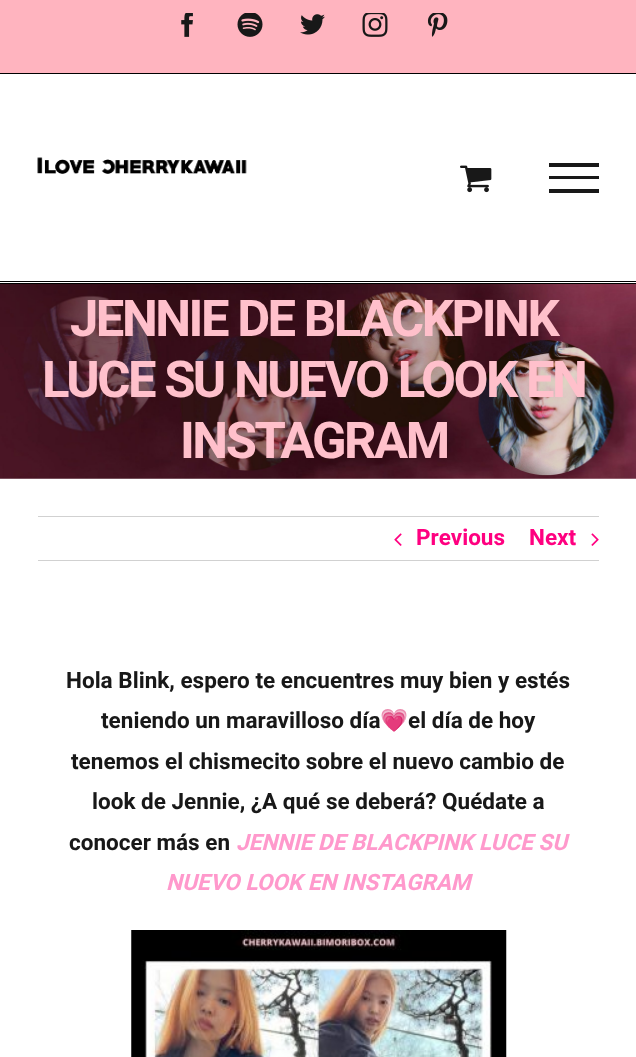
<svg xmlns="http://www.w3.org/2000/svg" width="636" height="1057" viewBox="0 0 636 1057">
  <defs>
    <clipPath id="clip1"><path d="M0 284h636v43H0z"/></clipPath>
  </defs>
  <rect width="100%" height="100%" fill="#fff"/>
  <image x="0" y="284" width="636" height="195" href="img/8.png"/>
  <g clip-path="url(#clip1)">
    <path d="M3 15h631v279H3z" fill="#00000024" filter="blur(31px)"/>
  </g>
  <path d="M0 0h636v73H0z" fill="#ffb4bf"/>
  <path d="M0 73h636v1H0z" fill="#000"/>
  <image x="181" y="13" width="12" height="24" href="img/1.png"/>
  <image x="237" y="13" width="26" height="24" href="img/2.png"/>
  <image x="300" y="14" width="25" height="21" href="img/3.png"/>
  <image x="362" y="13" width="26" height="24" href="img/4.png"/>
  <image x="427" y="13" width="21" height="24" href="img/5.png"/>
  <path d="M0 281h636v1H0z" fill="#000"/>
  <image x="37" y="157" width="210" height="17" href="img/6.png"/>
  <image x="460" y="165" width="32" height="28" href="img/7.png"/>
  <path d="M549 163h50v4H549z" fill="#181818"/>
  <path d="M549 176h50v3H549z" fill="#181818"/>
  <path d="M549 189h50v4H549z" fill="#181818"/>
  <path d="M0 283h636v1H0z" fill="#000"/>
  <path d="M38 516h561v1H38z" fill="#d1d1d1"/>
  <path d="M38 560h561v1H38z" fill="#d1d1d1"/>
  <image x="394" y="533" width="8" height="13" href="img/9.png"/>
  <image x="591" y="533" width="8" height="13" href="img/10.png"/>
  <image x="131" y="930" width="376" height="127" href="img/11.png"/>
  <g font-family="Heebo" font-size="50.75" font-weight="bold" letter-spacing="-2.5" fill="#ffc0cb">
    <text x="70" y="336">JENNIE DE BLACKPINK</text>
    <text x="42" y="397">LUCE SU NUEVO LOOK EN</text>
    <text x="180" y="458">INSTAGRAM</text>
  </g>
  <g font-family="Heebo" font-size="22.5" font-weight="bold" fill="#ff0080">
    <text x="416" y="545">Previous</text>
    <text x="529" y="545">Next</text>
  </g>
  <g font-family="Heebo" font-size="22.5" font-weight="bold" fill="#181818">
    <text x="66" y="688">Hola Blink, espero te encuentres muy bien y estés</text>
    <text x="101" y="728">teniendo un maravilloso día</text>
  </g>
  <text x="380" y="728" font-family="Noto Color Emoji" font-size="22.5" font-weight="bold" fill="#181818">💗</text>
  <g font-family="Heebo" font-size="22.5" font-weight="bold" fill="#181818">
    <text x="408" y="728">el día de hoy</text>
    <text x="71" y="769">tenemos el chismecito sobre el nuevo cambio de</text>
    <text x="92" y="809">look de Jennie, ¿A qué se deberá? Quédate a</text>
    <text x="69" y="850">conocer más en</text>
  </g>
  <g font-family="Heebo" font-size="22.5" font-weight="bold" font-style="italic" fill="#f9c">
    <text x="236" y="850">JENNIE DE BLACKPINK LUCE SU</text>
    <text x="166" y="890">NUEVO LOOK EN INSTAGRAM</text>
  </g>
</svg>
